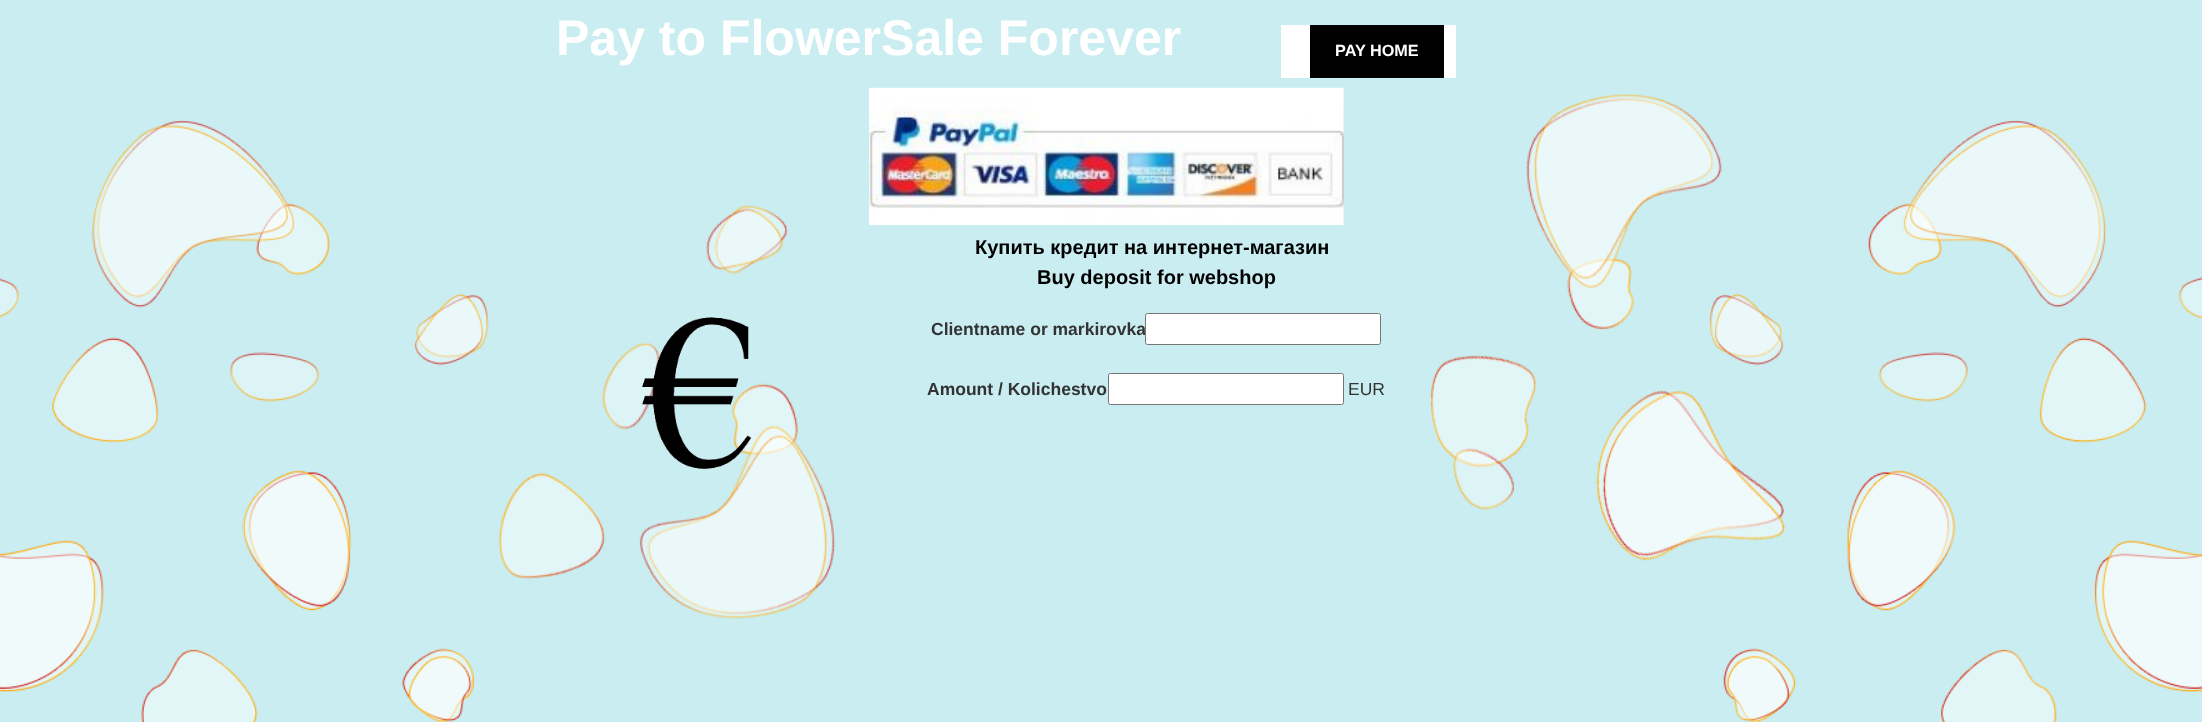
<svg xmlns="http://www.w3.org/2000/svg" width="2202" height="722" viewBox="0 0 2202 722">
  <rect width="100%" height="100%" fill="#c9edf0"/>
  <path d="M1281 25h175v53H1281z" fill="#fff"/>
  <path d="M1310 25h134v53H1310z" fill="#000"/>
  <image x="0" y="93" width="2202" height="629" href="img/3.png"/>
  <image x="869" y="87" width="475" height="138" href="img/1.png"/>
  <image x="642" y="317" width="110" height="152" href="img/2.png"/>
  <rect x="1108.5" y="373.5" width="235" height="31" rx="2" fill="#fff" stroke="#767676"/>
  <text x="556" y="55" font-family="Liberation Sans" font-size="50" font-weight="bold" fill="#fff">Pay to FlowerSale Forever</text>
  <text x="1335" y="56" font-family="Liberation Sans" font-size="16.25" font-weight="bold" fill="#fff">PAY HOME</text>
  <g font-family="Liberation Sans" font-size="20" font-weight="bold" fill="#000">
    <text x="975" y="254">Купить кредит на интернет-магазин</text>
    <text x="1037" y="284">Buy deposit for webshop</text>
  </g>
  <text x="931" y="335" font-family="Liberation Sans" font-size="17.5" font-weight="bold" fill="#333">Clientname or markirovka</text>
  <rect x="1145.5" y="313.5" width="235" height="31" rx="2" fill="#fff" stroke="#767676"/>
  <text x="927" y="395" font-family="Liberation Sans" font-size="17.5" font-weight="bold" fill="#333">Amount / Kolichestvo</text>
  <text x="1348" y="395" font-family="Liberation Sans" font-size="17.5" fill="#333">EUR</text>
</svg>
